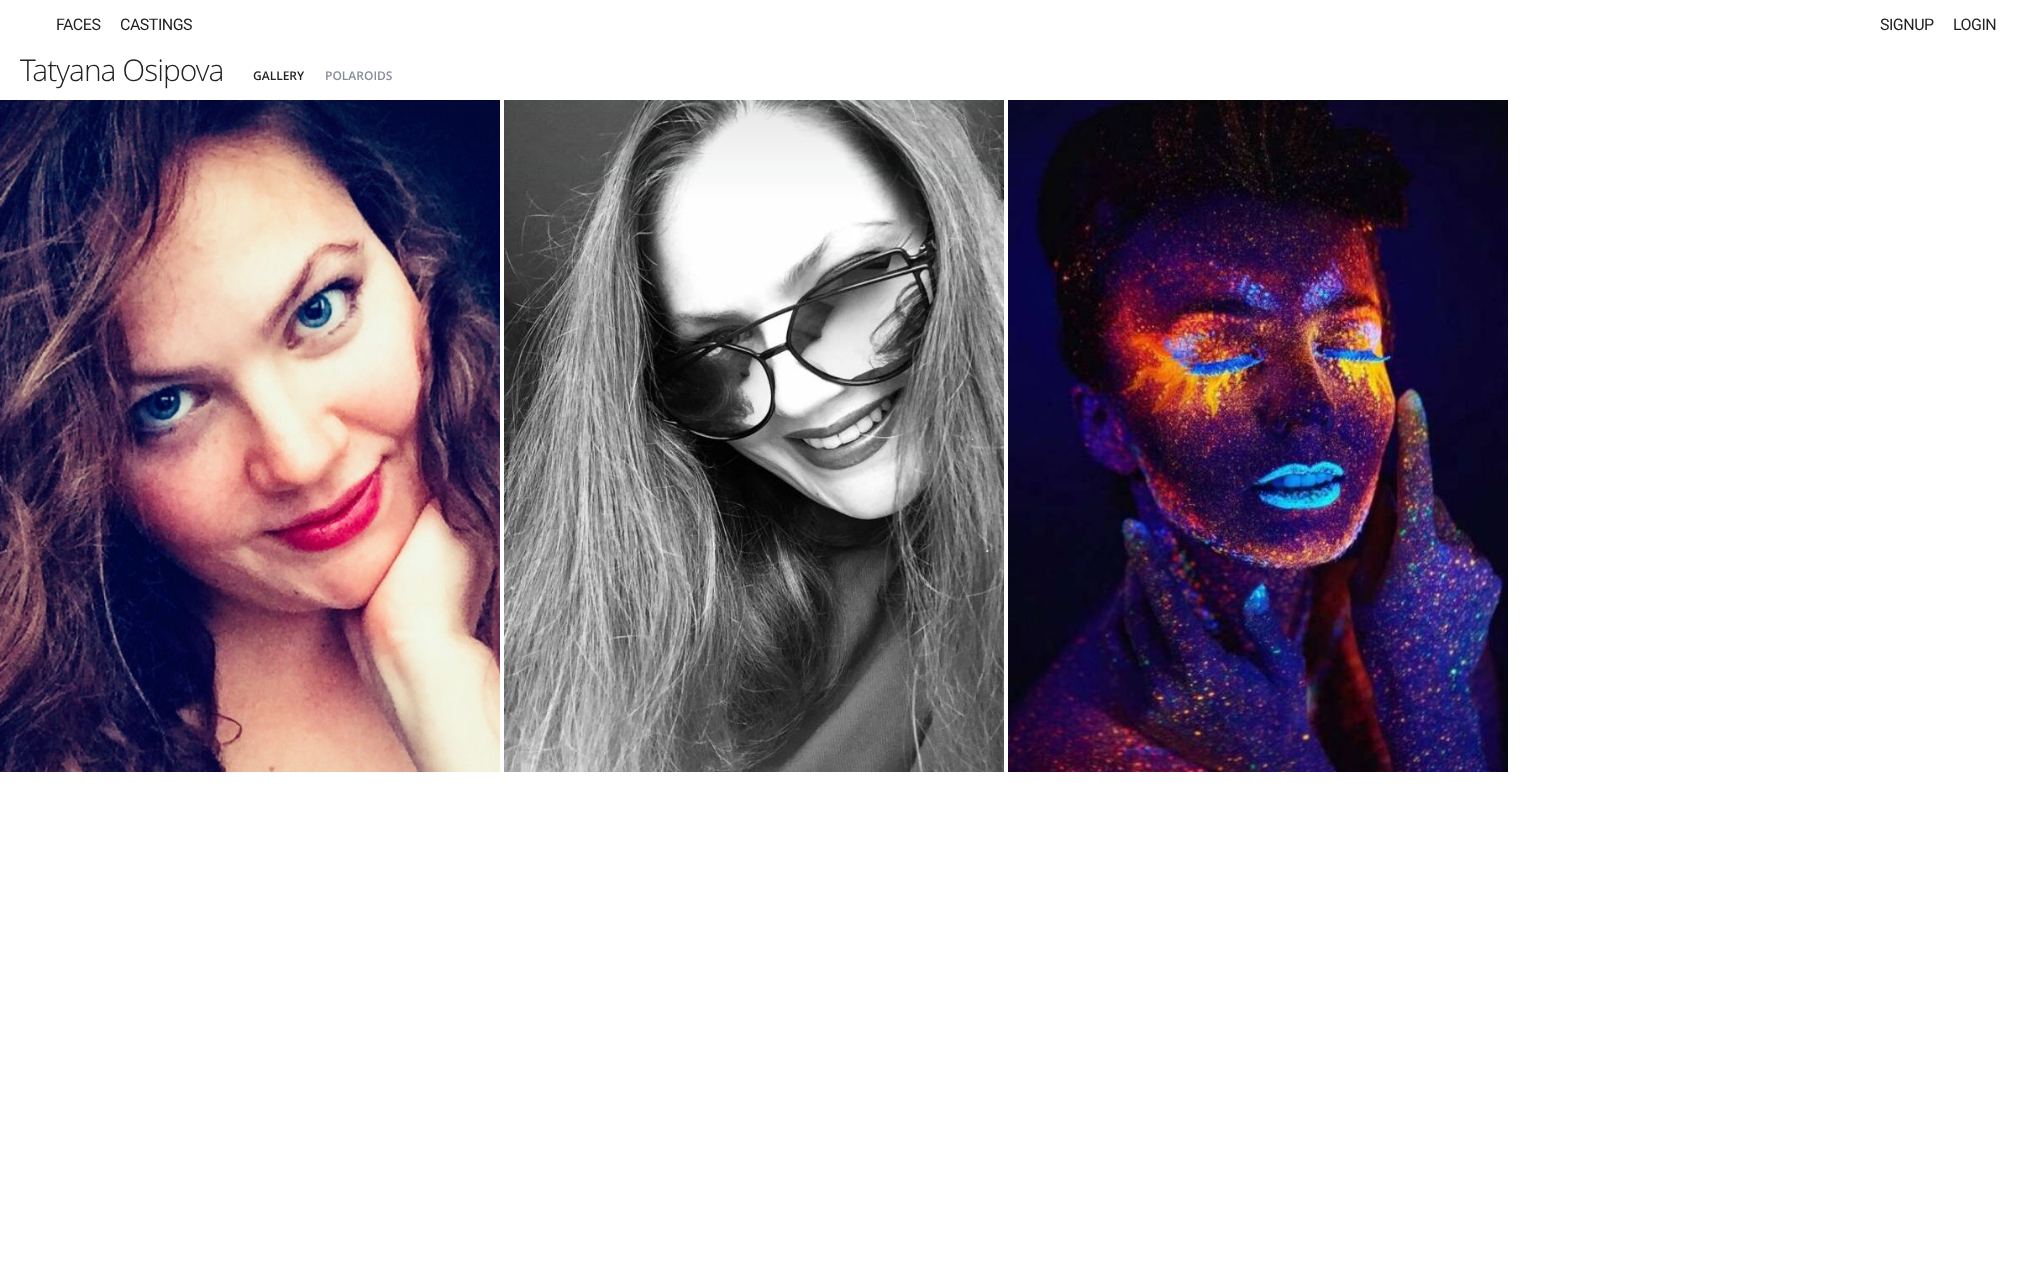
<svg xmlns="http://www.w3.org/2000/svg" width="2017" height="1274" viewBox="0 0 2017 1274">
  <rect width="100%" height="100%" fill="#fff"/>
  <image x="0" y="100" width="500" height="672" href="img/1.png"/>
  <image x="504" y="100" width="500" height="672" href="img/2.png"/>
  <image x="1008" y="100" width="500" height="672" href="img/3.png"/>
  <g font-family="Roboto" font-size="16" letter-spacing="-0.5" fill="#222">
    <text x="56" y="30">FACES</text>
    <text x="120" y="30">CASTINGS</text>
    <text x="1880" y="30">SIGNUP</text>
    <text x="1953" y="30">LOGIN</text>
  </g>
  <text x="20" y="81" font-family="Open Sans" font-size="30" font-weight="300" letter-spacing="-1" fill="#222">Tatyana Osipova</text>
  <text x="253" y="80" font-family="Open Sans" font-size="12" font-weight="600" fill="#222">GALLERY</text>
  <text x="325" y="80" font-family="Open Sans" font-size="12" font-weight="600" fill="#888b9a">POLAROIDS</text>
</svg>
